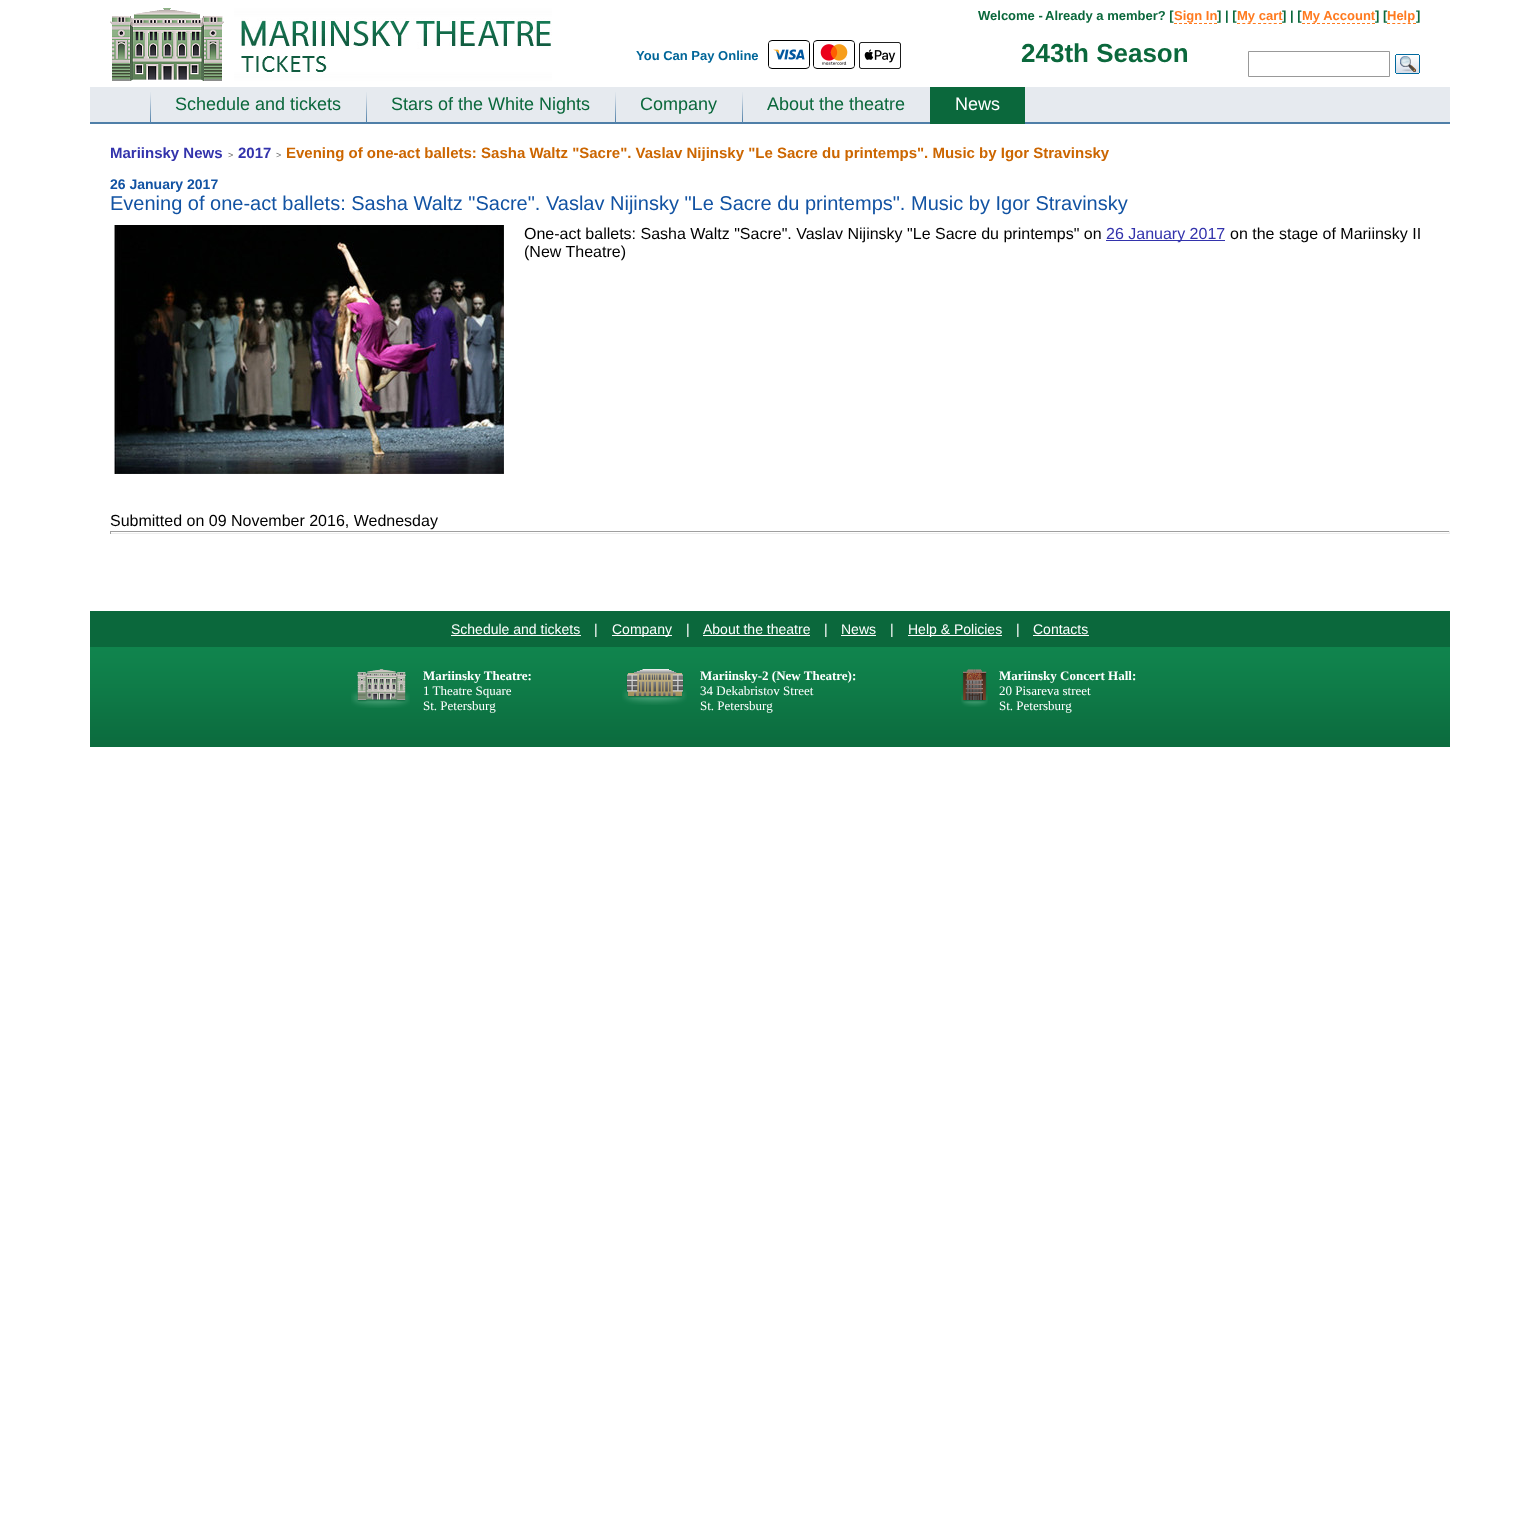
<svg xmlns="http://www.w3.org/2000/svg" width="1540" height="1538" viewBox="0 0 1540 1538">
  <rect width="100%" height="100%" fill="#fff"/>
  <image x="110" y="8" width="442" height="73" href="img/1.png"/>
  <path d="M1174 23.5H1217" fill="none" stroke="#ff7a1f" stroke-dasharray="3 2"/>
  <path d="M1237 23.5H1282" fill="none" stroke="#ff7a1f" stroke-dasharray="3 2.25"/>
  <path d="M1302 23.5H1375" fill="none" stroke="#ff7a1f" stroke-dasharray="3 2"/>
  <path d="M1387 23.5H1416" fill="none" stroke="#ff7a1f" stroke-dasharray="3 2.2"/>
  <rect x="768.5" y="40.5" width="41" height="28" rx="3.5" fill="none" stroke="#000"/>
  <rect x="813.5" y="40.5" width="41" height="28" rx="3.5" fill="none" stroke="#000"/>
  <image x="769" y="42" width="40" height="25" href="img/2.png"/>
  <image x="814" y="42" width="40" height="25" href="img/3.png"/>
  <image x="859" y="42" width="42" height="27" href="img/4.png"/>
  <path d="M1248.5 51.5h141v25H1248.5z" fill="none" stroke="#999"/>
  <image x="1395" y="54" width="25" height="20" href="img/5.png"/>
  <path d="M90 87h1360v35H90z" fill="#e6eaef"/>
  <path d="M90 122h1360v2H90z" fill="#4f7fa8"/>
  <image x="150" y="92" width="1" height="31" href="img/6.png"/>
  <image x="366" y="92" width="1" height="31" href="img/6.png"/>
  <image x="615" y="92" width="1" height="31" href="img/6.png"/>
  <image x="742" y="92" width="1" height="31" href="img/6.png"/>
  <path d="M930 87h95v37H930z" fill="#0b683c"/>
  <image x="114" y="225" width="390" height="249" href="img/7.png"/>
  <path d="M1106 240h119v1H1106z" fill="#3333ac"/>
  <path d="M110 531h1340v1H110z" fill="#9f9f9f"/>
  <path d="M1449 531h1v3H1449z" fill="#eee"/>
  <path d="M110 533h1340v1H110z" fill="#eee"/>
  <path d="M110 531h1v3H110z" fill="#9f9f9f"/>
  <path d="M90 611h1360v36H90z" fill="#0b683c"/>
  <path d="M451 635h130v1H451z" fill="#fff"/>
  <path d="M612 635h60v1H612z" fill="#fff"/>
  <path d="M703 635h107v1H703z" fill="#fff"/>
  <path d="M841 635h35v1H841z" fill="#fff"/>
  <path d="M908 635h94v1H908z" fill="#fff"/>
  <path d="M1033 635h56v1H1033z" fill="#fff"/>
  <image x="90" y="647" width="1360" height="100" href="img/8.png"/>
  <image x="351" y="669" width="59" height="39" href="img/9.png"/>
  <image x="622" y="669" width="65" height="36" href="img/10.png"/>
  <image x="961" y="669" width="27" height="38" href="img/11.png"/>
  <g font-family="Liberation Sans" font-size="13" font-weight="bold" fill="#0b683c">
    <text x="978" y="20">Welcome -</text>
    <text x="1045" y="20">Already a member? [</text>
  </g>
  <text x="1174" y="20" font-family="Liberation Sans" font-size="13" font-weight="bold" fill="#ff7a1f">Sign In</text>
  <text x="1217" y="20" font-family="Liberation Sans" font-size="13" font-weight="bold" fill="#0b683c">] | [</text>
  <text x="1237" y="20" font-family="Liberation Sans" font-size="13" font-weight="bold" fill="#ff7a1f">My cart</text>
  <text x="1282" y="20" font-family="Liberation Sans" font-size="13" font-weight="bold" fill="#0b683c">] | [</text>
  <text x="1302" y="20" font-family="Liberation Sans" font-size="13" font-weight="bold" fill="#ff7a1f">My Account</text>
  <text x="1375" y="20" font-family="Liberation Sans" font-size="13" font-weight="bold" fill="#0b683c">] [</text>
  <text x="1387" y="20" font-family="Liberation Sans" font-size="13" font-weight="bold" fill="#ff7a1f">Help</text>
  <text x="1416" y="20" font-family="Liberation Sans" font-size="13" font-weight="bold" fill="#0b683c">]</text>
  <text x="636" y="60" font-family="Liberation Sans" font-size="13" font-weight="bold" fill="#069">You Can Pay Online</text>
  <text x="1021" y="62" font-family="Liberation Sans" font-size="26" font-weight="bold" fill="#0b683c">243th Season</text>
  <g font-family="Liberation Sans" font-size="18" fill="#0b683c">
    <text x="175" y="110">Schedule and tickets</text>
    <text x="391" y="110">Stars of the White Nights</text>
    <text x="640" y="110">Company</text>
    <text x="767" y="110">About the theatre</text>
  </g>
  <text x="955" y="110" font-family="Liberation Sans" font-size="18" fill="#fff">News</text>
  <text x="110" y="158" font-family="Liberation Sans" font-size="15" font-weight="bold" fill="#3333ac">Mariinsky News</text>
  <text x="228" y="158" font-family="Liberation Sans" font-size="9" fill="#666">&gt;</text>
  <text x="238" y="158" font-family="Liberation Sans" font-size="15" font-weight="bold" fill="#3333ac">2017</text>
  <text x="276" y="158" font-family="Liberation Sans" font-size="9" fill="#666">&gt;</text>
  <text x="286" y="158" font-family="Liberation Sans" font-size="15" font-weight="bold" fill="#c60">Evening of one-act ballets: Sasha Waltz "Sacre". Vaslav Nijinsky "Le Sacre du printemps". Musiс by Igor Stravinsky</text>
  <text x="110" y="189" font-family="Liberation Sans" font-size="14" font-weight="bold" fill="#1253a3">26 January 2017</text>
  <text x="110" y="210" font-family="Liberation Sans" font-size="20" fill="#1253a3">Evening of one-act ballets: Sasha Waltz "Sacre". Vaslav Nijinsky "Le Sacre du printemps". Musiс by Igor Stravinsky</text>
  <text x="524" y="239" font-family="Liberation Sans" font-size="16" fill="#000">One-act ballets: Sasha Waltz "Sacre". Vaslav Nijinsky "Le Sacre du printemps" on</text>
  <text x="1106" y="239" font-family="Liberation Sans" font-size="16" fill="#3333ac">26 January 2017</text>
  <g font-family="Liberation Sans" font-size="16" fill="#000">
    <text x="1230" y="239">on the stage of Mariinsky II</text>
    <text x="524" y="257">(New Theatre)</text>
    <text x="110" y="526">Submitted on 09 November 2016, Wednesday</text>
  </g>
  <g font-family="Liberation Sans" font-size="14" fill="#fff">
    <text x="451" y="634">Schedule and tickets</text>
    <text x="594" y="634">|</text>
    <text x="612" y="634">Company</text>
    <text x="686" y="634">|</text>
    <text x="703" y="634">About the theatre</text>
    <text x="824" y="634">|</text>
    <text x="841" y="634">News</text>
    <text x="890" y="634">|</text>
    <text x="908" y="634">Help &amp; Policies</text>
    <text x="1016" y="634">|</text>
    <text x="1033" y="634">Contacts</text>
  </g>
  <text x="423" y="680" font-family="Liberation Serif" font-size="13" font-weight="bold" fill="#fff">Mariinsky Theatre:</text>
  <g font-family="Liberation Serif" font-size="13" fill="#fff">
    <text x="423" y="695">1 Theatre Square</text>
    <text x="423" y="710">St. Petersburg</text>
  </g>
  <text x="700" y="680" font-family="Liberation Serif" font-size="13" font-weight="bold" fill="#fff">Mariinsky-2 (New Theatre):</text>
  <g font-family="Liberation Serif" font-size="13" fill="#fff">
    <text x="700" y="695">34 Dekabristov Street</text>
    <text x="700" y="710">St. Petersburg</text>
  </g>
  <text x="999" y="680" font-family="Liberation Serif" font-size="13" font-weight="bold" fill="#fff">Mariinsky Concert Hall:</text>
  <g font-family="Liberation Serif" font-size="13" fill="#fff">
    <text x="999" y="695">20 Pisareva street</text>
    <text x="999" y="710">St. Petersburg</text>
  </g>
</svg>
